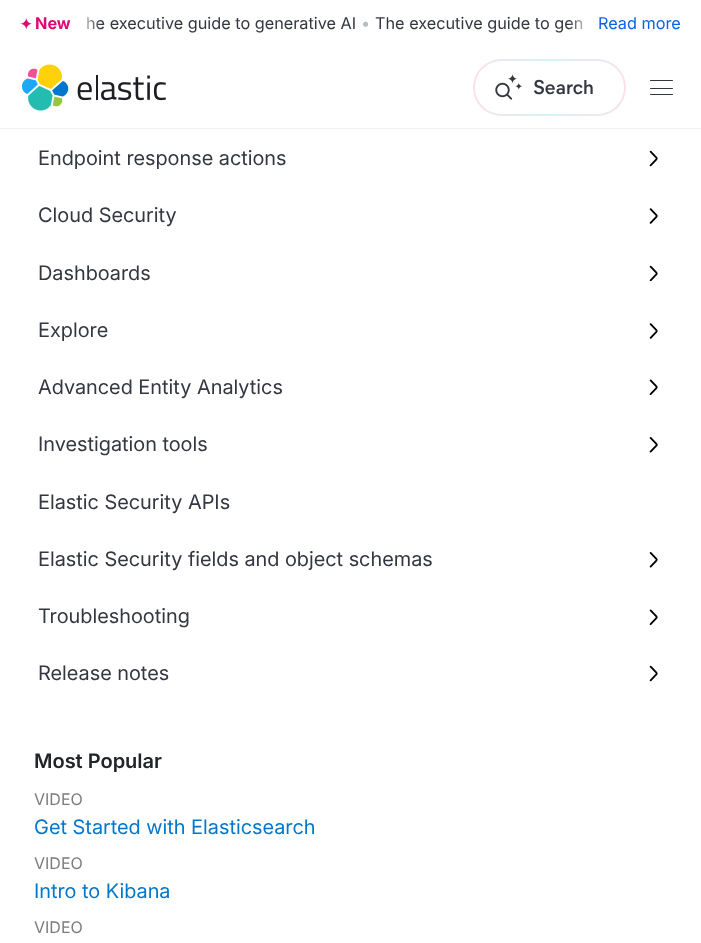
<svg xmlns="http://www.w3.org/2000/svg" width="701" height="943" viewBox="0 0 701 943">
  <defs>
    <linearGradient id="g1" gradientUnits="userSpaceOnUse" x1="473" y1="88" x2="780" y2="87"><stop offset="0" stop-color="#fce1ed"/><stop offset="0.25" stop-color="#d4f4f3"/><stop offset="0.5" stop-color="#fce1ed"/><stop offset="0.75" stop-color="#d4f4f3"/><stop offset="1" stop-color="#fce1ed"/></linearGradient>
    <linearGradient id="g2" gradientUnits="userSpaceOnUse" x1="76" y1="24" x2="101" y2="24"><stop offset="0" stop-color="#fff"/><stop offset="1" stop-color="#fff" stop-opacity="0"/></linearGradient>
    <linearGradient id="g3" gradientUnits="userSpaceOnUse" x1="593" y1="24" x2="568" y2="24"><stop offset="0" stop-color="#fff"/><stop offset="1" stop-color="#fff" stop-opacity="0"/></linearGradient>
  </defs>
  <rect width="100%" height="100%" fill="#fff"/>
  <path d="M0 128h701v1H0z" fill="#eeeff1"/>
  <image x="20" y="18" width="13" height="12" href="img/1.png"/>
  <image x="21" y="64" width="145" height="47" href="img/2.png"/>
  <rect x="473" y="59" width="153" height="57" rx="28.5" fill="url(#g1)"/>
  <rect x="475" y="61" width="149" height="53" rx="26.5" fill="#fff"/>
  <image x="495" y="74" width="28" height="26" href="img/3.png"/>
  <rect x="650" y="80" width="23" height="1" rx="0.5" fill="#343741"/>
  <rect x="650" y="88" width="23" height="1" rx="0.5" fill="#343741"/>
  <rect x="650" y="94" width="23" height="1" rx="0.5" fill="#343741"/>
  <image x="649" y="150" width="9" height="17" href="img/4.png"/>
  <image x="649" y="208" width="9" height="16" href="img/5.png"/>
  <image x="649" y="265" width="9" height="16" href="img/6.png"/>
  <image x="649" y="323" width="9" height="16" href="img/5.png"/>
  <image x="649" y="379" width="9" height="16" href="img/7.png"/>
  <image x="649" y="437" width="9" height="16" href="img/8.png"/>
  <image x="649" y="552" width="9" height="16" href="img/9.png"/>
  <image x="649" y="609" width="9" height="16" href="img/7.png"/>
  <image x="649" y="665" width="9" height="17" href="img/4.png"/>
  <text x="35" y="29" font-family="Inter" font-size="16.25" font-weight="bold" fill="#dd0a73">New</text>
  <text x="86" y="29" font-family="'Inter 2'" font-size="16.25" fill="#343741">he executive guide to generative AI</text>
  <text x="361" y="29" font-family="'Inter 2'" font-size="16.25" fill="#b5bcc4">•</text>
  <text x="375" y="29" font-family="'Inter 2'" font-size="16.25" fill="#343741">The executive guide to gen</text>
  <path d="M87 17h13v12H87z" fill="url(#g2)"/>
  <path d="M569 20h14v9H569z" fill="url(#g3)"/>
  <text x="598" y="29" font-family="'Inter 2'" font-size="16.25" fill="#0b64dd">Read more</text>
  <text x="533" y="94" font-family="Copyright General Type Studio" font-size="20" font-weight="600" fill="#343741">Search</text>
  <g font-family="Inter" font-size="20" fill="#343741">
    <text x="38" y="165">Endpoint response actions</text>
    <text x="38" y="222">Cloud Security</text>
    <text x="38" y="280">Dashboards</text>
    <text x="38" y="337">Explore</text>
    <text x="38" y="394">Advanced Entity Analytics</text>
    <text x="38" y="451">Investigation tools</text>
    <text x="38" y="509">Elastic Security APIs</text>
    <text x="38" y="566">Elastic Security fields and object schemas</text>
    <text x="38" y="623">Troubleshooting</text>
    <text x="38" y="680">Release notes</text>
  </g>
  <text x="34" y="768" font-family="Inter" font-size="20" font-weight="600" fill="#212529">Most Popular</text>
  <text x="34" y="805" font-family="'Inter 2'" font-size="16" fill="#7a7c7f">VIDEO</text>
  <text x="34" y="834" font-family="Inter" font-size="20" fill="#07c">Get Started with Elasticsearch</text>
  <text x="34" y="869" font-family="'Inter 2'" font-size="16" fill="#7a7c7f">VIDEO</text>
  <text x="34" y="898" font-family="Inter" font-size="20" fill="#07c">Intro to Kibana</text>
  <text x="34" y="933" font-family="'Inter 2'" font-size="16" fill="#7a7c7f">VIDEO</text>
</svg>
